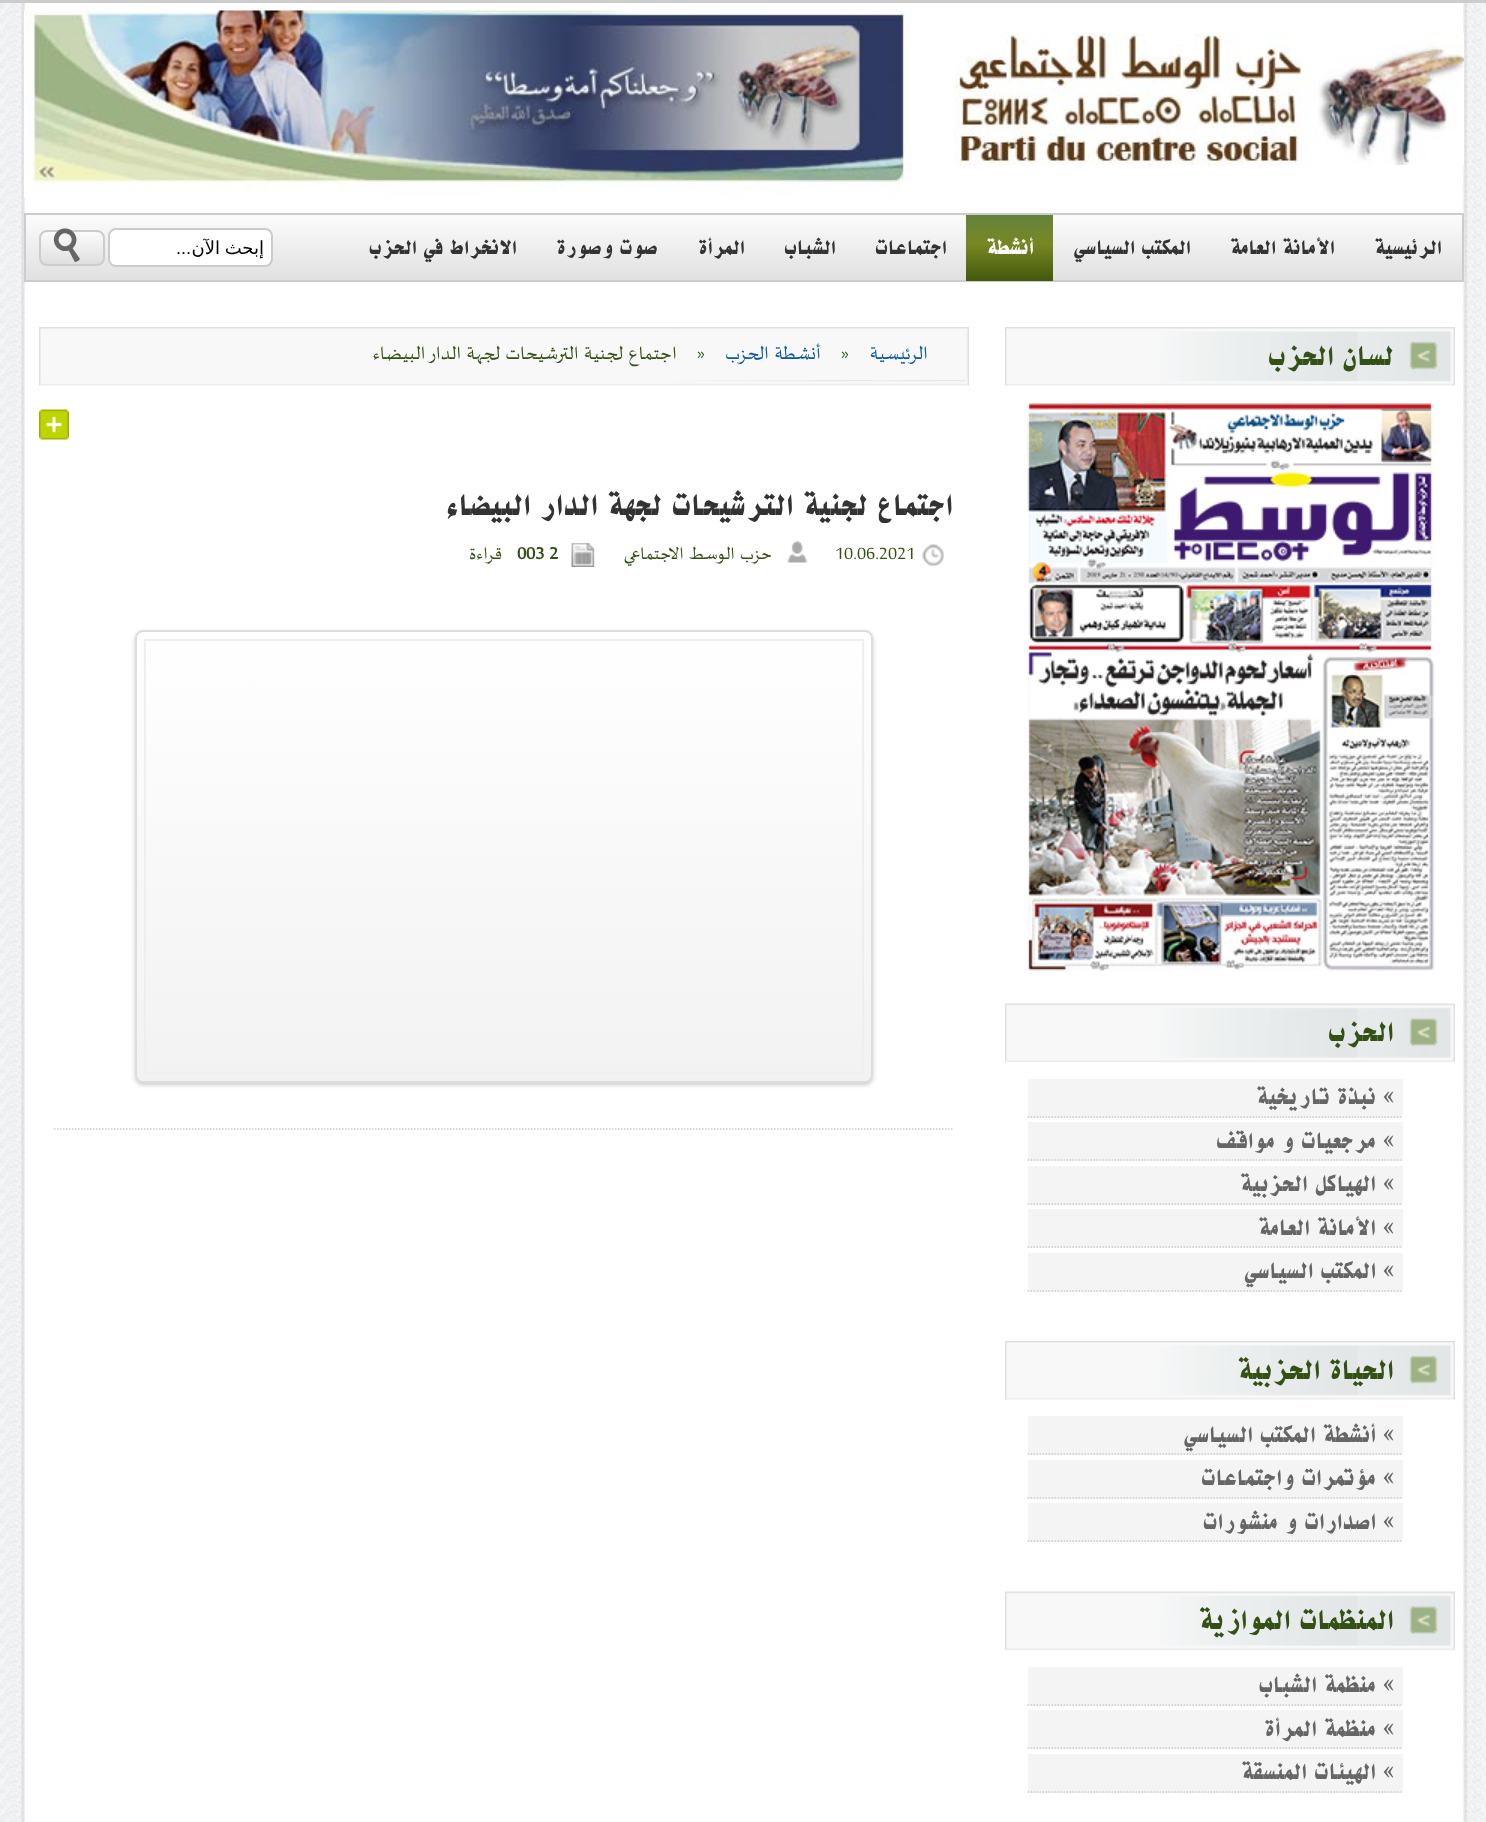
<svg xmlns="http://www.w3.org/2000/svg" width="1486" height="1822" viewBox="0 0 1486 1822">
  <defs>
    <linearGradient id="g1" gradientUnits="userSpaceOnUse" x1="744" y1="214" x2="744" y2="281"><stop offset="0" stop-color="#fcfcfc"/><stop offset="1" stop-color="#e0e0e0"/></linearGradient>
    <linearGradient id="g2" gradientUnits="userSpaceOnUse" x1="1010" y1="215" x2="1010" y2="281"><stop offset="0" stop-color="#64823c"/><stop offset="0.44" stop-color="#788723"/><stop offset="1" stop-color="#42580b"/></linearGradient>
    <clipPath id="clip1"><rect x="39" y="230" width="66" height="36" rx="8"/></clipPath>
    <linearGradient id="g3" gradientUnits="userSpaceOnUse" x1="72" y1="231" x2="72" y2="264"><stop offset="0" stop-color="#fcfcfc"/><stop offset="1" stop-color="#e0e0e0"/></linearGradient>
    <clipPath id="clip2"><rect x="135" y="630" width="738" height="453" rx="8"/></clipPath>
    <linearGradient id="g4" gradientUnits="userSpaceOnUse" x1="137" y1="1082" x2="137" y2="632"><stop offset="0" stop-color="#f2f2f2"/><stop offset="1" stop-color="#fff"/></linearGradient>
  </defs>
  <rect width="100%" height="100%" fill="#fff"/>
  <image x="0" y="3" width="1486" height="1819" href="img/1.png"/>
  <path d="M0 0h1486v3H0z" fill="#ccc"/>
  <image x="954" y="33" width="510" height="132" href="img/2.png"/>
  <image x="24" y="10" width="888" height="188" href="img/3.png"/>
  <path d="M26 215h1436v65H26z" fill="url(#g1)"/>
  <path d="M25 214h1438v67H25z" fill="none" stroke="#ccc" stroke-width="2"/>
  <path d="M966 215h87v66H966z" fill="url(#g2)"/>
  <rect x="109" y="229" width="163" height="37" rx="7" fill="#fff" stroke="#ccc" stroke-width="2"/>
  <g clip-path="url(#clip1)">
    <path d="M39 231h66v33H39z" fill="url(#g3)"/>
  </g>
  <rect x="40" y="231" width="64" height="34" rx="7" fill="none" stroke="#ccc" stroke-width="2"/>
  <image x="1005" y="327" width="450" height="59" href="img/4.png"/>
  <image x="1027" y="403" width="410" height="568" href="img/5.png"/>
  <image x="1005" y="1003" width="450" height="60" href="img/6.png"/>
  <path d="M1028 1079h375v39H1028z" fill="#f4f4f4"/>
  <path d="M1027.5 1117H1402.5" fill="none" stroke="#ccc" stroke-width="1.5" stroke-dasharray="1.5 1.5"/>
  <path d="M1028 1122h375v39H1028z" fill="#f4f4f4"/>
  <path d="M1027.5 1160H1402.5" fill="none" stroke="#ccc" stroke-width="1.5" stroke-dasharray="1.5 1.5"/>
  <path d="M1028 1166h375v39H1028z" fill="#f4f4f4"/>
  <path d="M1027.5 1204H1402.5" fill="none" stroke="#ccc" stroke-width="1.5" stroke-dasharray="1.5 1.5"/>
  <path d="M1028 1209h375v39H1028z" fill="#f4f4f4"/>
  <path d="M1027.5 1247H1402.5" fill="none" stroke="#ccc" stroke-width="1.5" stroke-dasharray="1.5 1.5"/>
  <path d="M1028 1253h375v39H1028z" fill="#f4f4f4"/>
  <path d="M1027.5 1291H1402.5" fill="none" stroke="#ccc" stroke-width="1.5" stroke-dasharray="1.5 1.5"/>
  <image x="1005" y="1341" width="450" height="59" href="img/4.png"/>
  <path d="M1028 1416h375v39H1028z" fill="#f4f4f4"/>
  <path d="M1027.5 1454H1402.5" fill="none" stroke="#ccc" stroke-width="1.5" stroke-dasharray="1.5 1.5"/>
  <path d="M1028 1460h375v39H1028z" fill="#f4f4f4"/>
  <path d="M1027.5 1498H1402.5" fill="none" stroke="#ccc" stroke-width="1.5" stroke-dasharray="1.5 1.5"/>
  <path d="M1028 1503h375v39H1028z" fill="#f4f4f4"/>
  <path d="M1027.5 1541H1402.5" fill="none" stroke="#ccc" stroke-width="1.5" stroke-dasharray="1.5 1.5"/>
  <image x="1005" y="1591" width="450" height="60" href="img/6.png"/>
  <path d="M1028 1667h375v39H1028z" fill="#f4f4f4"/>
  <path d="M1027.5 1705H1402.5" fill="none" stroke="#ccc" stroke-width="1.5" stroke-dasharray="1.5 1.5"/>
  <path d="M1028 1710h375v39H1028z" fill="#f4f4f4"/>
  <path d="M1027.5 1748H1402.5" fill="none" stroke="#ccc" stroke-width="1.5" stroke-dasharray="1.5 1.5"/>
  <path d="M1028 1754h375v39H1028z" fill="#f4f4f4"/>
  <path d="M1027.5 1792H1402.5" fill="none" stroke="#ccc" stroke-width="1.5" stroke-dasharray="1.5 1.5"/>
  <image x="39" y="327" width="930" height="59" href="img/7.png"/>
  <path d="M677 331h289v49H677z" fill="#f8f8f8"/>
  <image x="39" y="409" width="30" height="31" href="img/8.png"/>
  <image x="922" y="544" width="22" height="22" href="img/9.png"/>
  <image x="787" y="541" width="21" height="22" href="img/10.png"/>
  <image x="571" y="543" width="24" height="24" href="img/11.png"/>
  <rect x="135" y="632" width="738" height="453" rx="8" fill="#00000033" filter="blur(2px)"/>
  <g clip-path="url(#clip2)">
    <path d="M135 632h738v450H135z" fill="url(#g4)"/>
  </g>
  <rect x="136" y="631" width="736" height="451" rx="7" fill="none" stroke="#ddd" stroke-width="2"/>
  <path d="M145 640h718v433H145z" fill="none" stroke="#efefef" stroke-width="2"/>
  <path d="M54 1129H954" fill="none" stroke="#ccc" stroke-width="1.5" stroke-dasharray="1.5 1.5"/>
  <g font-family="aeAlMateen" font-size="24" direction="rtl" fill="#333">
    <text x="1442" y="254">الرئيسية</text>
    <text x="1335" y="254">الأمانة العامة</text>
    <text x="1191" y="254">المكتب السياسي</text>
  </g>
  <text x="1034" y="254" font-family="aeAlMateen" font-size="24" direction="rtl" fill="#fff">أنشطة</text>
  <g font-family="aeAlMateen" font-size="24" direction="rtl" fill="#333">
    <text x="947" y="254">اجتماعات</text>
    <text x="836" y="254">الشباب</text>
    <text x="745" y="254">المرأة</text>
    <text x="658" y="254">صوت وصورة</text>
    <text x="517" y="254">الانخراط في الحزب</text>
  </g>
  <text x="264" y="254" word-spacing="-1" font-family="DejaVu Sans" font-size="18" direction="rtl" fill="#000">إبحث الآن</text>
  <text x="191" y="254" font-family="Liberation Sans" font-size="18" direction="rtl" fill="#000">...</text>
  <text x="50" y="262" font-family="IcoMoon" font-size="46" font-weight="bold" fill="#666">s</text>
  <g font-family="aeAlMateen" font-size="33" direction="rtl" fill="#345115">
    <text x="1394" y="365">لسان الحزب</text>
    <text x="1394" y="1041">الحزب</text>
  </g>
  <g font-family="aeAlMateen" font-size="27" direction="rtl" fill="#666">
    <text x="1394" y="1104">» نبذة تاريخية</text>
    <text x="1394" y="1148">» مرجعيات و مواقف</text>
    <text x="1394" y="1191">» الهياكل الحزبية</text>
    <text x="1394" y="1235">» الأمانة العامة</text>
    <text x="1394" y="1278">» المكتب السياسي</text>
  </g>
  <text x="1394" y="1379" font-family="aeAlMateen" font-size="33" direction="rtl" fill="#345115">الحياة الحزبية</text>
  <g font-family="aeAlMateen" font-size="27" direction="rtl" fill="#666">
    <text x="1394" y="1442">» أنشطة المكتب السياسي</text>
    <text x="1394" y="1485">» مؤتمرات واجتماعات</text>
    <text x="1394" y="1529">» اصدارات و منشورات</text>
  </g>
  <text x="1394" y="1629" font-family="aeAlMateen" font-size="33" direction="rtl" fill="#345115">المنظمات الموازية</text>
  <g font-family="aeAlMateen" font-size="27" direction="rtl" fill="#666">
    <text x="1394" y="1692">» منظمة الشباب</text>
    <text x="1394" y="1736">» منظمة المرأة</text>
    <text x="1394" y="1779">» الهيئات المنسقة</text>
  </g>
  <text x="928" y="359" font-family="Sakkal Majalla" font-size="24" direction="rtl" fill="#0a58a0">الرئيسية</text>
  <text x="841" y="359" font-family="Sakkal Majalla" font-size="24" fill="#345115">»</text>
  <text x="821" y="359" font-family="Sakkal Majalla" font-size="24" direction="rtl" fill="#0a58a0">أنشطة الحزب</text>
  <text x="697" y="359" font-family="Sakkal Majalla" font-size="24" fill="#345115">»</text>
  <text x="677" y="359" font-family="Sakkal Majalla" font-size="24" direction="rtl" fill="#345115">اجتماع لجنية الترشيحات لجهة الدار البيضاء</text>
  <text x="953" y="515" font-family="aeAlMateen" font-size="36" direction="rtl" fill="#333">اجتماع لجنية الترشيحات لجهة الدار البيضاء</text>
  <text x="835" y="559" font-family="Sakkal Majalla" font-size="22.5" fill="#345115">10.06.2021</text>
  <text x="772" y="559" font-family="Sakkal Majalla" font-size="22.5" direction="rtl" fill="#345115">حزب الوسط الاجتماعي</text>
  <g font-family="Sakkal Majalla" font-size="22.5" font-weight="bold" fill="#345115">
    <text x="549" y="559">2</text>
    <text x="517" y="559">003</text>
  </g>
  <text x="502" y="559" font-family="Sakkal Majalla" font-size="22.5" direction="rtl" fill="#345115">قراءة</text>
</svg>
